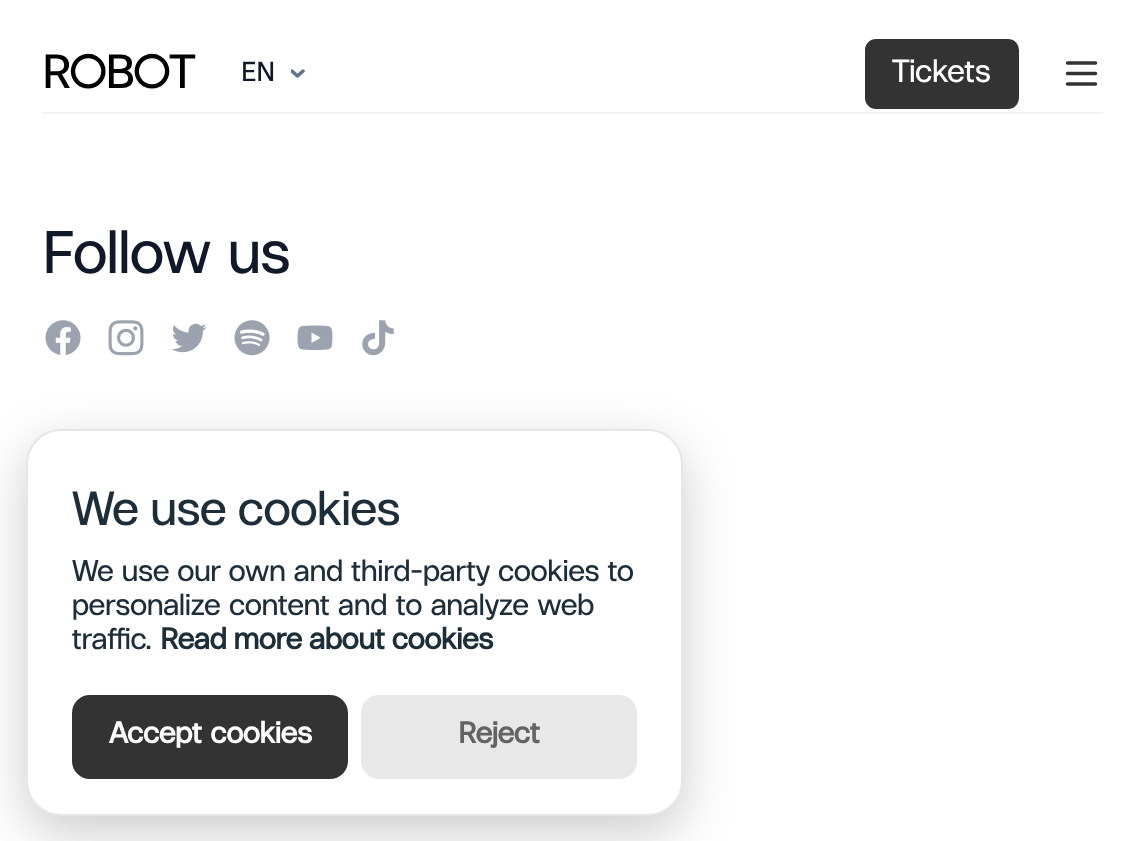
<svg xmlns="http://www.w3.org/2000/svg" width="1143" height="841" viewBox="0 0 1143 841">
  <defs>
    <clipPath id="clip1"><path d="M291 42h14v63H291z"/></clipPath>
  </defs>
  <rect width="100%" height="100%" fill="#fff"/>
  <g clip-path="url(#clip1)">
    <path d="M303 71L297.5 76L292 71" fill="none" stroke="#64748b" stroke-width="3.5" stroke-linecap="round" stroke-linejoin="round"/>
  </g>
  <rect x="865" y="39" width="154" height="70" rx="11" fill="#333"/>
  <path d="M1067.5 63H1095.5M1067.5 73.5H1095.5M1067.5 84H1095.5" fill="none" stroke="#333" stroke-width="3.5" stroke-linecap="round" stroke-linejoin="round"/>
  <path d="M42 112h1061v2H42z" fill="#f3f3f4"/>
  <image x="45" y="320" width="36" height="35" href="img/1.png"/>
  <image x="108" y="320" width="36" height="36" href="img/2.png"/>
  <image x="171" y="323" width="36" height="30" href="img/3.png"/>
  <image x="234" y="320" width="36" height="36" href="img/4.png"/>
  <image x="297" y="325" width="36" height="25" href="img/5.png"/>
  <image x="362" y="320" width="32" height="36" href="img/6.png"/>
  <rect x="26" y="446" width="657" height="387" rx="35" fill="#02020333" filter="blur(26px)"/>
  <rect x="27" y="430" width="655" height="385" rx="34" fill="#fff" stroke="#e6e6e6" stroke-width="2"/>
  <rect x="72" y="695" width="276" height="84" rx="18" fill="#333"/>
  <rect x="361" y="695" width="276" height="84" rx="18" fill="#e8e8e8"/>
  <text x="42" y="88" font-family="'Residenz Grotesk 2'" font-size="42" font-weight="500" fill="#000">ROBOT</text>
  <text x="241" y="81" font-family="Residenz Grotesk" font-size="24" font-weight="500" fill="#111827">EN</text>
  <text x="892" y="82" font-family="Residenz Grotesk" font-size="28" font-weight="500" fill="#fff">Tickets</text>
  <text x="42" y="273" font-family="Residenz Grotesk" font-size="52.5" font-weight="500" fill="#111827">Follow us</text>
  <text x="72" y="525" word-spacing="-2" font-family="Residenz Grotesk" font-size="42" font-weight="500" fill="#1d2e38">We use cookies</text>
  <g font-family="Residenz Grotesk" font-size="26.25" font-weight="500" fill="#1d2e38">
    <text x="72" y="581" word-spacing="-0.5">We use our own and third-party cookies to</text>
    <text x="72" y="615">personalize content and to analyze web</text>
    <text x="72" y="649">traffic.</text>
  </g>
  <text x="160" y="649" word-spacing="-1.5" font-family="Residenz Grotesk" font-size="26.25" font-weight="bold" fill="#1d2e38">Read more about cookies</text>
  <text x="109" y="743" font-family="Residenz Grotesk" font-size="26.25" font-weight="bold" fill="#fff">Accept cookies</text>
  <text x="458" y="743" font-family="Residenz Grotesk" font-size="26.25" font-weight="bold" fill="#636363">Reject</text>
</svg>
